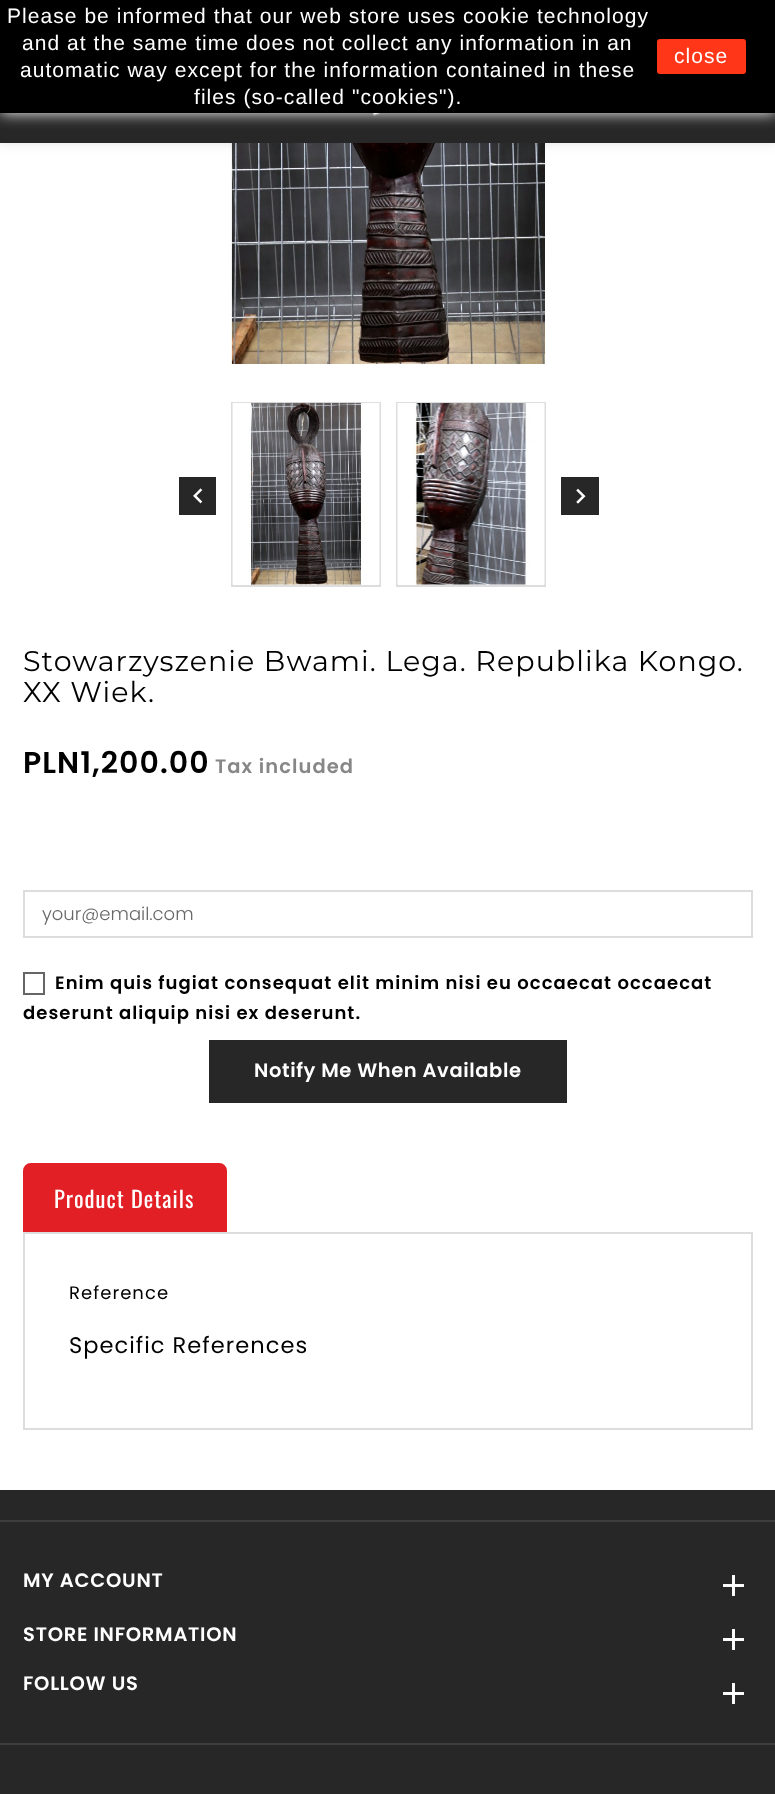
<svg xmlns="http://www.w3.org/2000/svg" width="775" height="1794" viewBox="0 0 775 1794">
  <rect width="100%" height="100%" fill="#fff"/>
  <image x="229" y="143" width="317" height="221" href="img/3.png"/>
  <path d="M0 0h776v143H0z" fill="#0000001f" filter="blur(6px)"/>
  <path d="M0 113h775v30H0z" fill="#272727"/>
  <image x="372" y="113" width="8" height="3" href="img/1.png"/>
  <path d="M0 1490h775v253H0z" fill="#272727"/>
  <path d="M0 1520h775v2H0z" fill="#3d3d3d"/>
  <path d="M0 0h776v113H0z" fill="#fff" filter="blur(7.5px)"/>
  <path d="M0 0h775v113H0z" fill="#000"/>
  <rect x="657" y="39" width="89" height="35" rx="3" fill="#ff3617"/>
  <image x="723" y="1575" width="21" height="21" href="img/2.png"/>
  <image x="723" y="1629" width="21" height="21" href="img/2.png"/>
  <image x="723" y="1683" width="21" height="21" href="img/2.png"/>
  <path d="M0 1745h775v49H0z" fill="#272727"/>
  <path d="M0 1743h775v2H0z" fill="#3d3d3d"/>
  <path d="M232 403h148v183H232z" fill="none" stroke="#ddd" stroke-width="2"/>
  <image x="232" y="402" width="148" height="183" href="img/4.png"/>
  <path d="M397 403h148v183H397z" fill="none" stroke="#ddd" stroke-width="2"/>
  <image x="397" y="403" width="148" height="182" href="img/5.png"/>
  <path d="M179 477h37v38H179z" fill="#272727"/>
  <image x="193" y="488" width="10" height="16" href="img/6.png"/>
  <path d="M561 477h38v38H561z" fill="#272727"/>
  <image x="576" y="488" width="10" height="16" href="img/7.png"/>
  <path d="M24 891h728v46H24z" fill="none" stroke="#ddd" stroke-width="2"/>
  <path d="M24 973h20v21H24z" fill="none" stroke="#666" stroke-width="2"/>
  <path d="M209 1040h358v63H209z" fill="#272727"/>
  <path d="M31 1164H219C223 1164 226 1167 226 1171V1231H24V1171C24 1167 27 1164 31 1164Z" fill="#e31f26" stroke="#e31f26" stroke-width="2"/>
  <path d="M24 1233h728v196H24z" fill="none" stroke="#ddd" stroke-width="2"/>
  <g font-family="Liberation Sans" font-size="21" letter-spacing="1.05" fill="#fff">
    <text x="7" y="23">Please be informed that our web store uses cookie technology</text>
    <text x="22" y="50">and at the same time does not collect any information in an</text>
    <text x="20" y="77">automatic way except for the information contained in these</text>
    <text x="194" y="104">files (so-called "cookies").</text>
    <text x="674" y="63">close</text>
  </g>
  <g font-family="Poppins" font-size="19.5" font-weight="600" letter-spacing="0.75" fill="#fff">
    <text x="23" y="1587">MY ACCOUNT</text>
    <text x="23" y="1641">STORE INFORMATION</text>
    <text x="23" y="1690">FOLLOW US</text>
  </g>
  <g font-family="Montserrat" font-size="28.5" letter-spacing="1.05" fill="#000">
    <text x="23" y="671">Stowarzyszenie Bwami. Lega. Republika Kongo.</text>
    <text x="23" y="702">XX Wiek.</text>
  </g>
  <text x="23" y="773" font-family="Poppins" font-size="30" font-weight="600" letter-spacing="1.05" fill="#000">PLN1,200.00</text>
  <text x="215" y="773" font-family="Poppins" font-size="19.5" font-weight="600" letter-spacing="1.05" fill="#878787">Tax included</text>
  <text x="42" y="920" font-family="Poppins" font-size="18" font-weight="300" fill="#666">your@email.com</text>
  <g font-family="Poppins" font-size="18" font-weight="600" letter-spacing="1.05" fill="#000">
    <text x="55" y="989">Enim quis fugiat consequat elit minim nisi eu occaecat occaecat</text>
    <text x="23" y="1019">deserunt aliquip nisi ex deserunt.</text>
  </g>
  <text x="254" y="1077" font-family="Poppins" font-size="19.5" font-weight="600" letter-spacing="0.6" fill="#fff">Notify Me When Available</text>
  <text x="54" y="1208" font-family="Oswald" font-size="22.5" letter-spacing="1.05" fill="#fff">Product Details</text>
  <text x="69" y="1299" font-family="Poppins" font-size="18" letter-spacing="1.05" fill="#000">Reference</text>
  <text x="69" y="1353" font-family="Poppins" font-size="22.5" letter-spacing="1.05" fill="#000">Specific References</text>
</svg>
